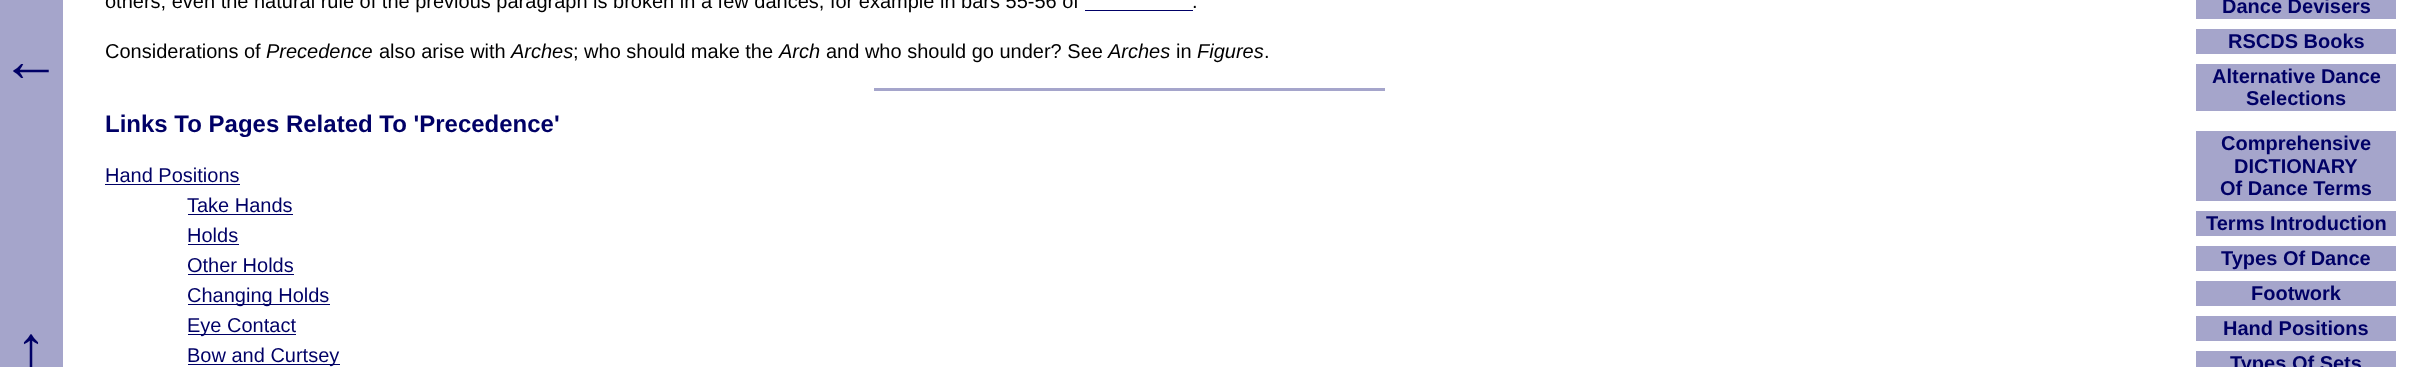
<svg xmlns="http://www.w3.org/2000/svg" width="2421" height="367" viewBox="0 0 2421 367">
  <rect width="100%" height="100%" fill="#fff"/>
  <path d="M0 0h63v367H0z" fill="#a5a5cb"/>
  <path d="M1085 10h108v1H1085z" fill="#006"/>
  <path d="M874 88h511v3H874z" fill="#a5a5cb"/>
  <path d="M105 184h135v1H105z" fill="#006"/>
  <path d="M188 214h105v1H188z" fill="#006"/>
  <path d="M188 244h51v1H188z" fill="#006"/>
  <path d="M188 274h106v1H188z" fill="#006"/>
  <path d="M188 304h142v1H188z" fill="#006"/>
  <path d="M188 334h108v1H188z" fill="#006"/>
  <path d="M188 364h152v1H188z" fill="#006"/>
  <path d="M2196 0h200v19H2196z" fill="#a5a5cb"/>
  <path d="M2196 29h200v25H2196z" fill="#a5a5cb"/>
  <path d="M2196 64h200v47H2196z" fill="#a5a5cb"/>
  <path d="M2196 131h200v70H2196z" fill="#a5a5cb"/>
  <path d="M2196 211h200v25H2196z" fill="#a5a5cb"/>
  <path d="M2196 246h200v25H2196z" fill="#a5a5cb"/>
  <path d="M2196 281h200v25H2196z" fill="#a5a5cb"/>
  <path d="M2196 316h200v25H2196z" fill="#a5a5cb"/>
  <path d="M2196 351h200v16H2196z" fill="#a5a5cb"/>
  <g font-family="Liberation Sans" font-size="20" fill="#000">
    <text x="105" y="8">others; even the natural rule of the previous paragraph is broken in a few dances, for example in bars 55-56 of</text>
    <text x="1192" y="8">.</text>
    <text x="105" y="58">Considerations of</text>
  </g>
  <text x="266" y="58" font-family="Liberation Sans" font-size="20" font-style="italic" fill="#000">Precedence</text>
  <text x="379" y="58" font-family="Liberation Sans" font-size="20" fill="#000">also arise with</text>
  <text x="511" y="58" font-family="Liberation Sans" font-size="20" font-style="italic" fill="#000">Arches</text>
  <text x="573" y="58" font-family="Liberation Sans" font-size="20" fill="#000">; who should make the</text>
  <text x="779" y="58" font-family="Liberation Sans" font-size="20" font-style="italic" fill="#000">Arch</text>
  <text x="826" y="58" font-family="Liberation Sans" font-size="20" fill="#000">and who should go under? See</text>
  <text x="1108" y="58" font-family="Liberation Sans" font-size="20" font-style="italic" fill="#000">Arches</text>
  <text x="1176" y="58" font-family="Liberation Sans" font-size="20" fill="#000">in</text>
  <text x="1197" y="58" font-family="Liberation Sans" font-size="20" font-style="italic" fill="#000">Figures</text>
  <text x="1264" y="58" font-family="Liberation Sans" font-size="20" fill="#000">.</text>
  <text x="105" y="132" font-family="Liberation Sans" font-size="24" font-weight="bold" fill="#006">Links To Pages Related To 'Precedence'</text>
  <g font-family="Liberation Sans" font-size="20" fill="#006">
    <text x="105" y="182">Hand Positions</text>
    <text x="187" y="212">Take Hands</text>
    <text x="187" y="242">Holds</text>
    <text x="187" y="272">Other Holds</text>
    <text x="187" y="302">Changing Holds</text>
    <text x="187" y="332">Eye Contact</text>
    <text x="187" y="362">Bow and Curtsey</text>
  </g>
  <g font-family="Liberation Sans" font-size="20" font-weight="bold" fill="#006">
    <text x="2222" y="13">Dance Devisers</text>
    <text x="2228" y="48">RSCDS Books</text>
    <text x="2212" y="83">Alternative Dance</text>
    <text x="2246" y="105">Selections</text>
    <text x="2221" y="150">Comprehensive</text>
    <text x="2234" y="173">DICTIONARY</text>
    <text x="2220" y="195">Of Dance Terms</text>
    <text x="2206" y="230">Terms Introduction</text>
    <text x="2221" y="265">Types Of Dance</text>
    <text x="2251" y="300">Footwork</text>
    <text x="2223" y="335">Hand Positions</text>
    <text x="2230" y="370">Types Of Sets</text>
  </g>
  <g font-family="Liberation Sans" font-size="60" fill="#006">
    <text x="1" y="81">←</text>
    <text x="16" y="368">↑</text>
  </g>
</svg>
